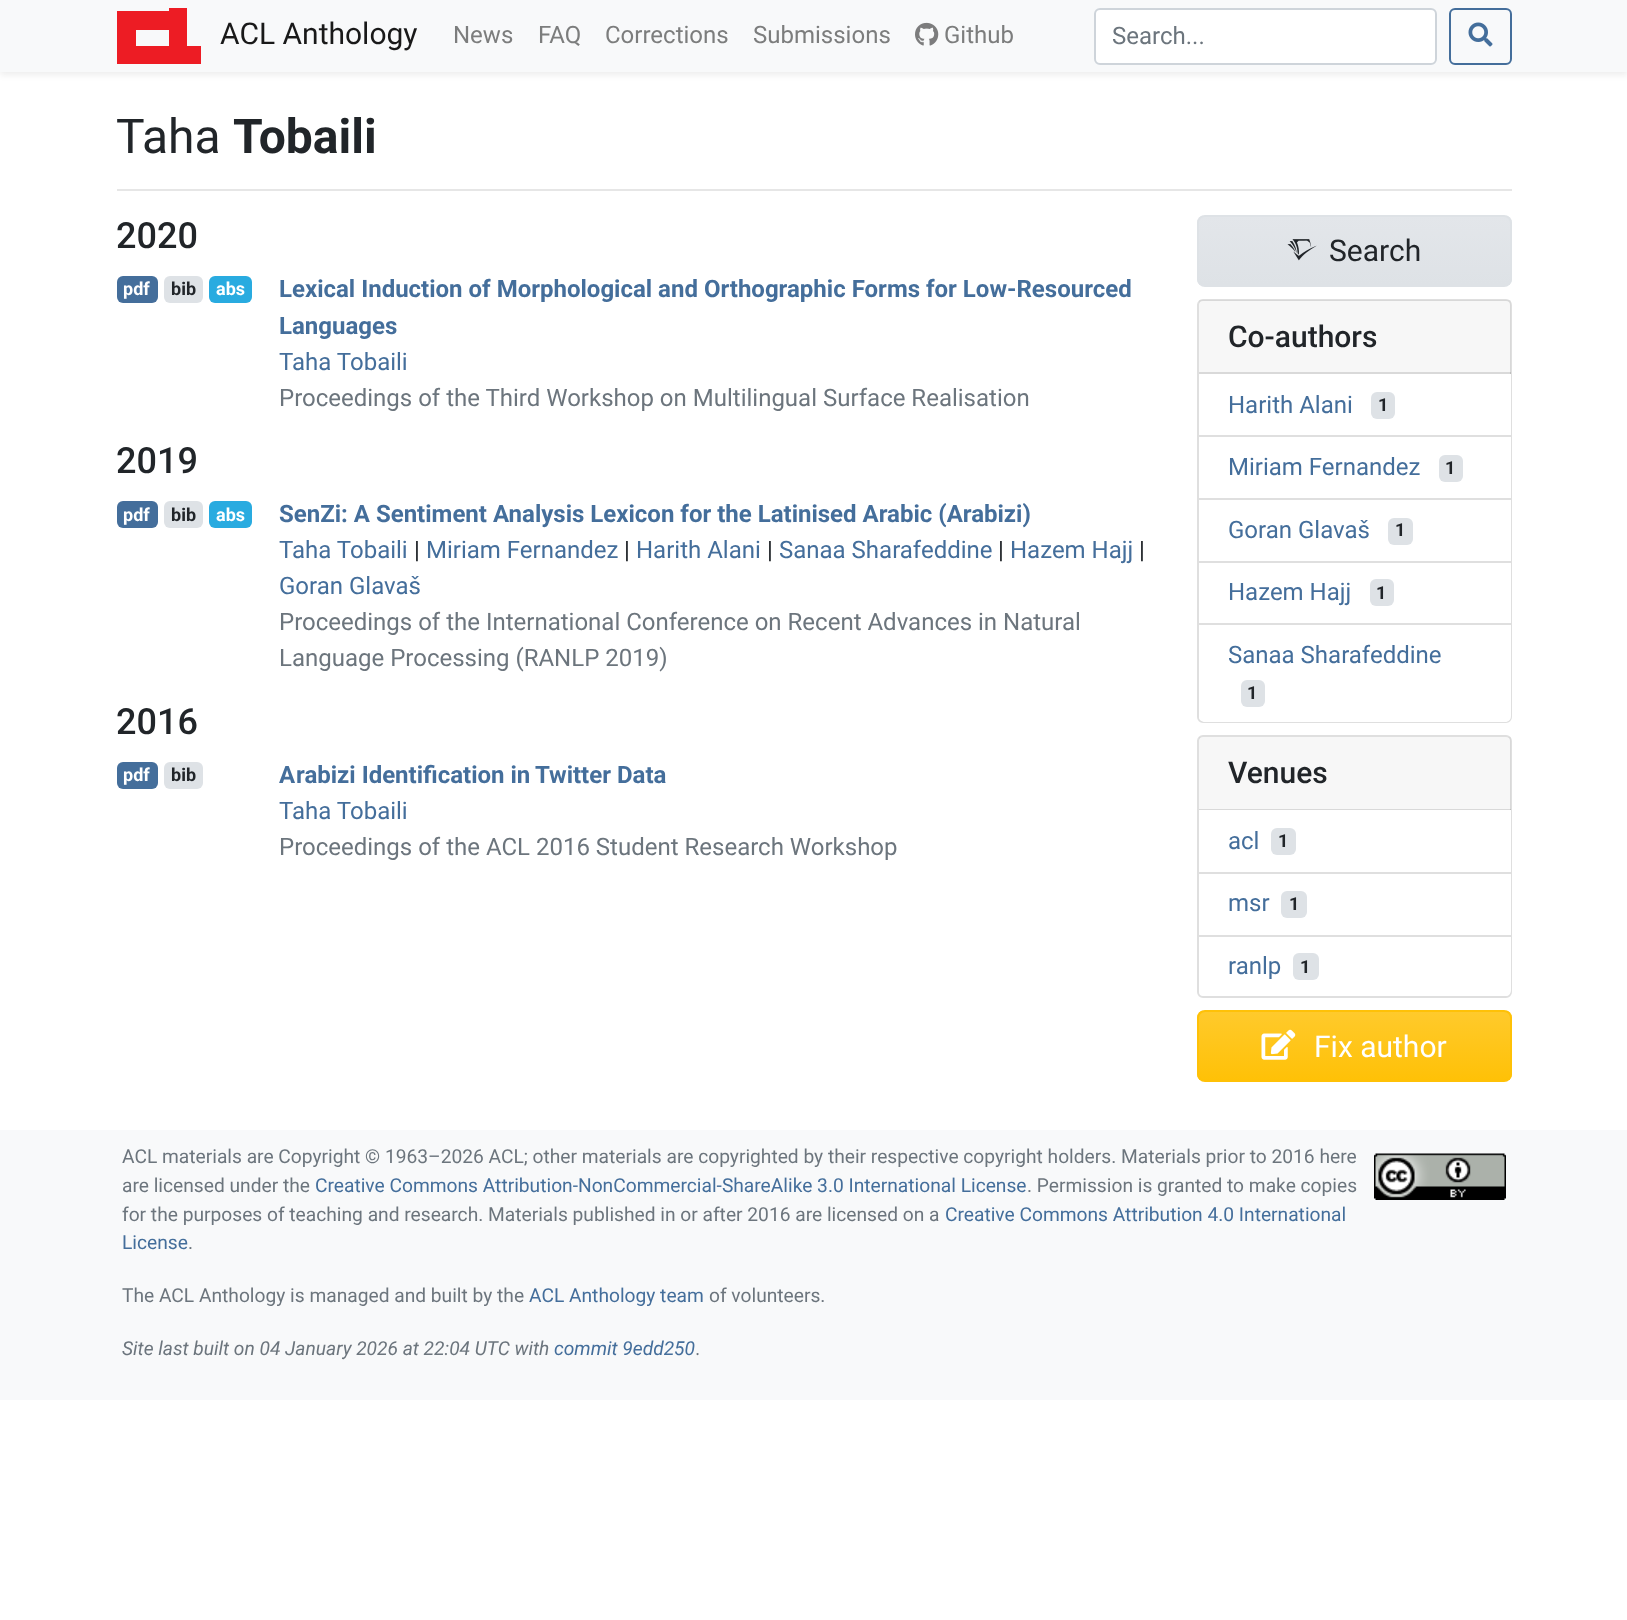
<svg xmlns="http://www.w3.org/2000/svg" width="1627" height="1620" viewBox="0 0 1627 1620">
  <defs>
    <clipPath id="clip1"><rect x="1197" y="215" width="315" height="72" rx="8"/></clipPath>
    <linearGradient id="g1" gradientUnits="userSpaceOnUse" x1="1355" y1="216" x2="1355" y2="285"><stop offset="0" stop-color="#e3e6ea"/><stop offset="1" stop-color="#dee2e6"/></linearGradient>
    <clipPath id="clip2"><rect x="1197" y="1010" width="315" height="72" rx="8"/></clipPath>
    <linearGradient id="g2" gradientUnits="userSpaceOnUse" x1="1355" y1="1011" x2="1355" y2="1080"><stop offset="0" stop-color="#ffca2c"/><stop offset="1" stop-color="#ffc107"/></linearGradient>
  </defs>
  <rect width="100%" height="100%" fill="#fff"/>
  <path d="M0 3h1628v72H0z" fill="#00000012" filter="blur(3px)"/>
  <path d="M0 0h1627v72H0z" fill="#f8f9fa"/>
  <path d="M169 8V11H117V64H201V46H187V8ZM136 30H169V46H136Z" fill="#ed1c24" fill-rule="evenodd"/>
  <image x="915" y="22" width="24" height="24" href="img/1.png"/>
  <rect x="1095" y="9" width="341" height="55" rx="5" fill="#fff" stroke="#ced4da" stroke-width="2"/>
  <rect x="1450" y="9" width="61" height="55" rx="5" fill="none" stroke="#446e9b" stroke-width="2"/>
  <image x="1468" y="22" width="25" height="25" href="img/2.png"/>
  <path d="M117 189h1395v2H117z" fill="#e6e6e6"/>
  <rect x="117" y="276" width="41" height="27" rx="6" fill="#446e9b"/>
  <rect x="164" y="276" width="39" height="27" rx="6" fill="#dee2e6"/>
  <rect x="209" y="276" width="43" height="27" rx="6" fill="#29abe0"/>
  <rect x="117" y="501" width="41" height="27" rx="6" fill="#446e9b"/>
  <rect x="164" y="501" width="39" height="27" rx="6" fill="#dee2e6"/>
  <rect x="209" y="501" width="43" height="27" rx="6" fill="#29abe0"/>
  <rect x="117" y="762" width="41" height="27" rx="6" fill="#446e9b"/>
  <rect x="164" y="762" width="39" height="27" rx="6" fill="#dee2e6"/>
  <g clip-path="url(#clip1)">
    <path d="M1197 216h315v69H1197z" fill="url(#g1)"/>
  </g>
  <rect x="1198" y="216" width="313" height="70" rx="7" fill="none" stroke="#dee2e6" stroke-width="2"/>
  <image x="1287" y="239" width="30" height="22" href="img/3.png"/>
  <rect x="1198" y="300" width="313" height="422" rx="5" fill="none" stroke="#dfdfdf" stroke-width="2"/>
  <path d="M1199 300h312v74H1199z" fill="#00000008"/>
  <path d="M1199 372h312v2H1199z" fill="#0000001f"/>
  <path d="M1510 374h1v61H1510z" fill="#fff"/>
  <rect x="1371" y="392" width="24" height="27" rx="6" fill="#dee2e6"/>
  <path d="M1510 437h1v61H1510z" fill="#fff"/>
  <path d="M1199 435h312v2H1199z" fill="#dfdfdf"/>
  <rect x="1439" y="455" width="24" height="27" rx="6" fill="#dee2e6"/>
  <path d="M1510 500h1v61H1510z" fill="#fff"/>
  <path d="M1199 498h312v2H1199z" fill="#dfdfdf"/>
  <rect x="1388" y="518" width="25" height="27" rx="6" fill="#dee2e6"/>
  <path d="M1510 563h1v60H1510z" fill="#fff"/>
  <path d="M1199 561h312v2H1199z" fill="#dfdfdf"/>
  <rect x="1370" y="579" width="24" height="27" rx="6" fill="#dee2e6"/>
  <path d="M1199 623H1511V716C1511 719.5 1508.5 722 1505 722H1205C1201.5 722 1199 719.5 1199 716Z" fill="#fff"/>
  <path d="M1199 623h312v2H1199z" fill="#dfdfdf"/>
  <rect x="1241" y="680" width="24" height="27" rx="6" fill="#dee2e6"/>
  <rect x="1198" y="736" width="313" height="261" rx="5" fill="none" stroke="#dfdfdf" stroke-width="2"/>
  <path d="M1199 737h312v73H1199z" fill="#00000008"/>
  <path d="M1199 809h312v1H1199z" fill="#0000001f"/>
  <path d="M1510 810h1v62H1510z" fill="#fff"/>
  <rect x="1271" y="828" width="25" height="27" rx="6" fill="#dee2e6"/>
  <path d="M1510 874h1v61H1510z" fill="#fff"/>
  <path d="M1199 872h312v2H1199z" fill="#dfdfdf"/>
  <rect x="1281" y="891" width="26" height="27" rx="6" fill="#dee2e6"/>
  <path d="M1199 935H1511V990C1511 993.5 1508.5 996 1505 996H1205C1201.5 996 1199 993.5 1199 990Z" fill="#fff"/>
  <path d="M1199 935h312v2H1199z" fill="#dfdfdf"/>
  <rect x="1293" y="953" width="26" height="27" rx="6" fill="#dee2e6"/>
  <g clip-path="url(#clip2)">
    <path d="M1197 1011h315v69H1197z" fill="url(#g2)"/>
  </g>
  <rect x="1198" y="1011" width="313" height="70" rx="7" fill="none" stroke="#ffc107" stroke-width="2"/>
  <image x="1261" y="1029" width="35" height="31" href="img/4.png"/>
  <path d="M0 1130h1627v270H0z" fill="#f8f9fa"/>
  <image x="1374" y="1153" width="132" height="47" href="img/5.png"/>
  <text x="220" y="44" font-family="Roboto" font-size="30" fill="#191919">ACL Anthology</text>
  <g font-family="Roboto" font-size="24" fill="#7c7d7d">
    <text x="453" y="43">News</text>
    <text x="538" y="43">FAQ</text>
    <text x="605" y="43">Corrections</text>
    <text x="753" y="43">Submissions</text>
    <text x="944" y="43">Github</text>
  </g>
  <text x="1112" y="44" font-family="Roboto" font-size="24" fill="#6c757d">Search...</text>
  <text x="116" y="153" font-family="Roboto" font-size="48" fill="#212529">Taha</text>
  <text x="233" y="153" font-family="Roboto" font-size="48" font-weight="bold" fill="#212529">Tobaili</text>
  <text x="116" y="248" font-family="Roboto" font-size="36" font-weight="500" fill="#212529">2020</text>
  <text x="123" y="295" font-family="Roboto" font-size="18" font-weight="bold" fill="#fff">pdf</text>
  <text x="171" y="295" font-family="Roboto" font-size="18" font-weight="bold" fill="#212529">bib</text>
  <text x="216" y="295" font-family="Roboto" font-size="18" font-weight="bold" fill="#fff">abs</text>
  <g font-family="Roboto" font-size="24" font-weight="bold" fill="#446e9b">
    <text x="279" y="297">Lexical Induction of Morphological and Orthographic Forms for Low-Resourced</text>
    <text x="279" y="334">Languages</text>
  </g>
  <text x="279" y="370" font-family="Roboto" font-size="24" fill="#446e9b">Taha Tobaili</text>
  <text x="279" y="406" font-family="Roboto" font-size="24" fill="#6c757d">Proceedings of the Third Workshop on Multilingual Surface Realisation</text>
  <text x="116" y="473" font-family="Roboto" font-size="36" font-weight="500" fill="#212529">2019</text>
  <text x="123" y="521" font-family="Roboto" font-size="18" font-weight="bold" fill="#fff">pdf</text>
  <text x="171" y="521" font-family="Roboto" font-size="18" font-weight="bold" fill="#212529">bib</text>
  <text x="216" y="521" font-family="Roboto" font-size="18" font-weight="bold" fill="#fff">abs</text>
  <text x="279" y="522" font-family="Roboto" font-size="24" font-weight="bold" fill="#446e9b">SenZi: A Sentiment Analysis Lexicon for the Latinised Arabic (Arabizi)</text>
  <text x="279" y="558" font-family="Roboto" font-size="24" fill="#446e9b">Taha Tobaili</text>
  <text x="414" y="558" font-family="Roboto" font-size="24" fill="#212529">|</text>
  <text x="426" y="558" font-family="Roboto" font-size="24" fill="#446e9b">Miriam Fernandez</text>
  <text x="624" y="558" font-family="Roboto" font-size="24" fill="#212529">|</text>
  <text x="636" y="558" font-family="Roboto" font-size="24" fill="#446e9b">Harith Alani</text>
  <text x="767" y="558" font-family="Roboto" font-size="24" fill="#212529">|</text>
  <text x="779" y="558" font-family="Roboto" font-size="24" fill="#446e9b">Sanaa Sharafeddine</text>
  <text x="998" y="558" font-family="Roboto" font-size="24" fill="#212529">|</text>
  <text x="1010" y="558" font-family="Roboto" font-size="24" fill="#446e9b">Hazem Hajj</text>
  <text x="1139" y="558" font-family="Roboto" font-size="24" fill="#212529">|</text>
  <text x="279" y="594" font-family="Roboto" font-size="24" fill="#446e9b">Goran Glavaš</text>
  <g font-family="Roboto" font-size="24" fill="#6c757d">
    <text x="279" y="630">Proceedings of the International Conference on Recent Advances in Natural</text>
    <text x="279" y="666">Language Processing (RANLP 2019)</text>
  </g>
  <text x="116" y="734" font-family="Roboto" font-size="36" font-weight="500" fill="#212529">2016</text>
  <text x="123" y="781" font-family="Roboto" font-size="18" font-weight="bold" fill="#fff">pdf</text>
  <text x="171" y="781" font-family="Roboto" font-size="18" font-weight="bold" fill="#212529">bib</text>
  <g font-family="Roboto" font-size="24" font-weight="bold" fill="#446e9b">
    <text x="279" y="783">A</text>
    <text x="296" y="783">rabizi Identification in</text>
    <text x="535" y="783">T</text>
    <text x="549" y="783">witter Data</text>
  </g>
  <text x="279" y="819" font-family="Roboto" font-size="24" fill="#446e9b">Taha Tobaili</text>
  <text x="279" y="855" font-family="Roboto" font-size="24" fill="#6c757d">Proceedings of the ACL 2016 Student Research Workshop</text>
  <text x="1329" y="261" font-family="Roboto" font-size="30" fill="#212529">Search</text>
  <text x="1228" y="347" font-family="Roboto" font-size="30" font-weight="500" fill="#212529">Co-authors</text>
  <text x="1228" y="413" font-family="Roboto" font-size="24" fill="#446e9b">Harith Alani</text>
  <text x="1378" y="411" font-family="Roboto" font-size="18" font-weight="bold" fill="#212529">1</text>
  <text x="1228" y="475" font-family="Roboto" font-size="24" fill="#446e9b">Miriam Fernandez</text>
  <text x="1445" y="474" font-family="Roboto" font-size="18" font-weight="bold" fill="#212529">1</text>
  <text x="1228" y="538" font-family="Roboto" font-size="24" fill="#446e9b">Goran Glavaš</text>
  <text x="1395" y="536" font-family="Roboto" font-size="18" font-weight="bold" fill="#212529">1</text>
  <text x="1228" y="600" font-family="Roboto" font-size="24" fill="#446e9b">Hazem Hajj</text>
  <text x="1376" y="599" font-family="Roboto" font-size="18" font-weight="bold" fill="#212529">1</text>
  <text x="1228" y="663" font-family="Roboto" font-size="24" fill="#446e9b">Sanaa Sharafeddine</text>
  <text x="1247" y="699" font-family="Roboto" font-size="18" font-weight="bold" fill="#212529">1</text>
  <text x="1228" y="783" font-family="Roboto" font-size="30" font-weight="500" fill="#212529">Venues</text>
  <text x="1228" y="849" font-family="Roboto" font-size="24" fill="#446e9b">acl</text>
  <text x="1278" y="847" font-family="Roboto" font-size="18" font-weight="bold" fill="#212529">1</text>
  <text x="1228" y="911" font-family="Roboto" font-size="24" fill="#446e9b">msr</text>
  <text x="1289" y="910" font-family="Roboto" font-size="18" font-weight="bold" fill="#212529">1</text>
  <text x="1228" y="974" font-family="Roboto" font-size="24" fill="#446e9b">ranlp</text>
  <text x="1300" y="973" font-family="Roboto" font-size="18" font-weight="bold" fill="#212529">1</text>
  <text x="1314" y="1057" font-family="Roboto" font-size="30" fill="#fff">Fix author</text>
  <g font-family="Roboto" font-size="19.2" fill="#6c757d">
    <text x="122" y="1163">ACL materials are Copyright © 1963–2026 ACL; other materials are copyrighted by their respective copyright holders. Materials prior to 2016 here</text>
    <text x="122" y="1192">are licensed under the</text>
  </g>
  <text x="315" y="1192" font-family="Roboto" font-size="19.2" fill="#446e9b">Creative Commons Attribution-NonCommercial-ShareAlike 3.0 International License</text>
  <g font-family="Roboto" font-size="19.2" fill="#6c757d">
    <text x="1027" y="1192">. Permission is granted to make copies</text>
    <text x="122" y="1221">for the purposes of teaching and research. Materials published in or after 2016 are licensed on a</text>
  </g>
  <g font-family="Roboto" font-size="19.2" fill="#446e9b">
    <text x="945" y="1221">Creative Commons Attribution 4.0 International</text>
    <text x="122" y="1249">License</text>
  </g>
  <g font-family="Roboto" font-size="19.2" fill="#6c757d">
    <text x="188" y="1249">.</text>
    <text x="122" y="1302">The ACL Anthology is managed and built by the</text>
  </g>
  <text x="529" y="1302" font-family="Roboto" font-size="19.2" fill="#446e9b">ACL Anthology team</text>
  <text x="709" y="1302" font-family="Roboto" font-size="19.2" fill="#6c757d">of volunteers.</text>
  <text x="122" y="1355" font-family="Roboto" font-size="19.2" font-style="italic" fill="#6c757d">Site last built on 04 January 2026 at 22:04 UTC with</text>
  <text x="554" y="1355" font-family="Roboto" font-size="19.2" font-style="italic" fill="#446e9b">commit 9edd250</text>
  <text x="696" y="1355" font-family="Roboto" font-size="19.2" font-style="italic" fill="#6c757d">.</text>
</svg>
